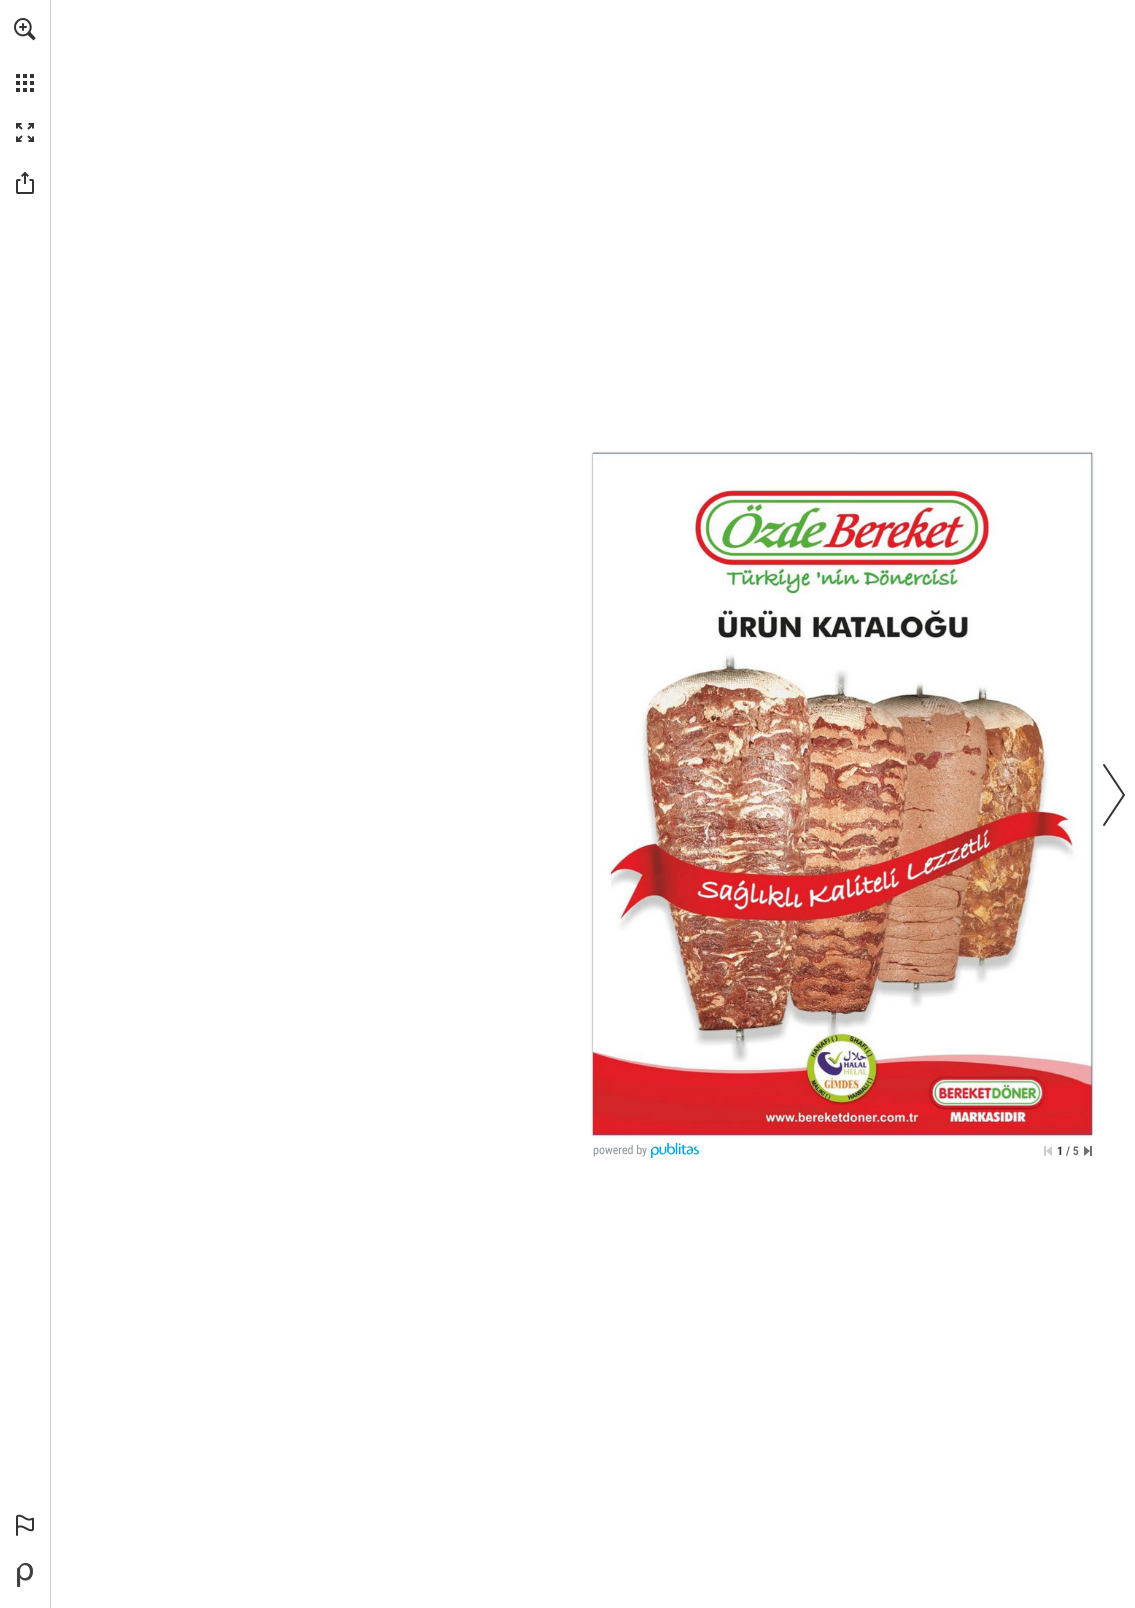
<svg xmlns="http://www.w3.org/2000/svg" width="1135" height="1608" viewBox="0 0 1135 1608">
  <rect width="100%" height="100%" fill="#fff"/>
  <path d="M1 0h50v1608H1z" fill="#00000033" filter="blur(0.5px)"/>
  <path d="M0 0h50v1608H0z" fill="#fff"/>
  <image x="14" y="18" width="22" height="23" href="img/1.png"/>
  <image x="16" y="74" width="18" height="18" href="img/2.png"/>
  <image x="16" y="123" width="18" height="19" href="img/3.png"/>
  <image x="16" y="172" width="18" height="22" href="img/4.png"/>
  <image x="16" y="1514" width="18" height="22" href="img/5.png"/>
  <image x="17" y="1563" width="16" height="24" href="img/6.png"/>
  <rect x="591" y="451" width="503" height="686" rx="3" fill="#1212120d" filter="blur(1px)"/>
  <rect x="592.5" y="452.5" width="500" height="683" rx="1.5" fill="none" stroke="#ccc"/>
  <image x="675" y="453" width="417" height="682" href="img/8.png"/>
  <image x="593" y="453" width="499" height="682" href="img/7.png"/>
  <image x="651" y="1143" width="48" height="15" href="img/9.png"/>
  <image x="1103" y="764" width="23" height="62" href="img/10.png"/>
  <image x="1044" y="1146" width="8" height="10" href="img/11.png"/>
  <image x="1084" y="1146" width="8" height="10" href="img/12.png"/>
  <text x="593" y="1154" font-family="Roboto Condensed" font-size="12" fill="#8f969b">powered by</text>
  <text x="1057" y="1155" font-family="Roboto Condensed" font-size="12" font-weight="bold" fill="#333">1</text>
  <text x="1066" y="1155" font-family="Roboto Condensed" font-size="12" font-weight="bold" fill="#707070">/ 5</text>
</svg>
